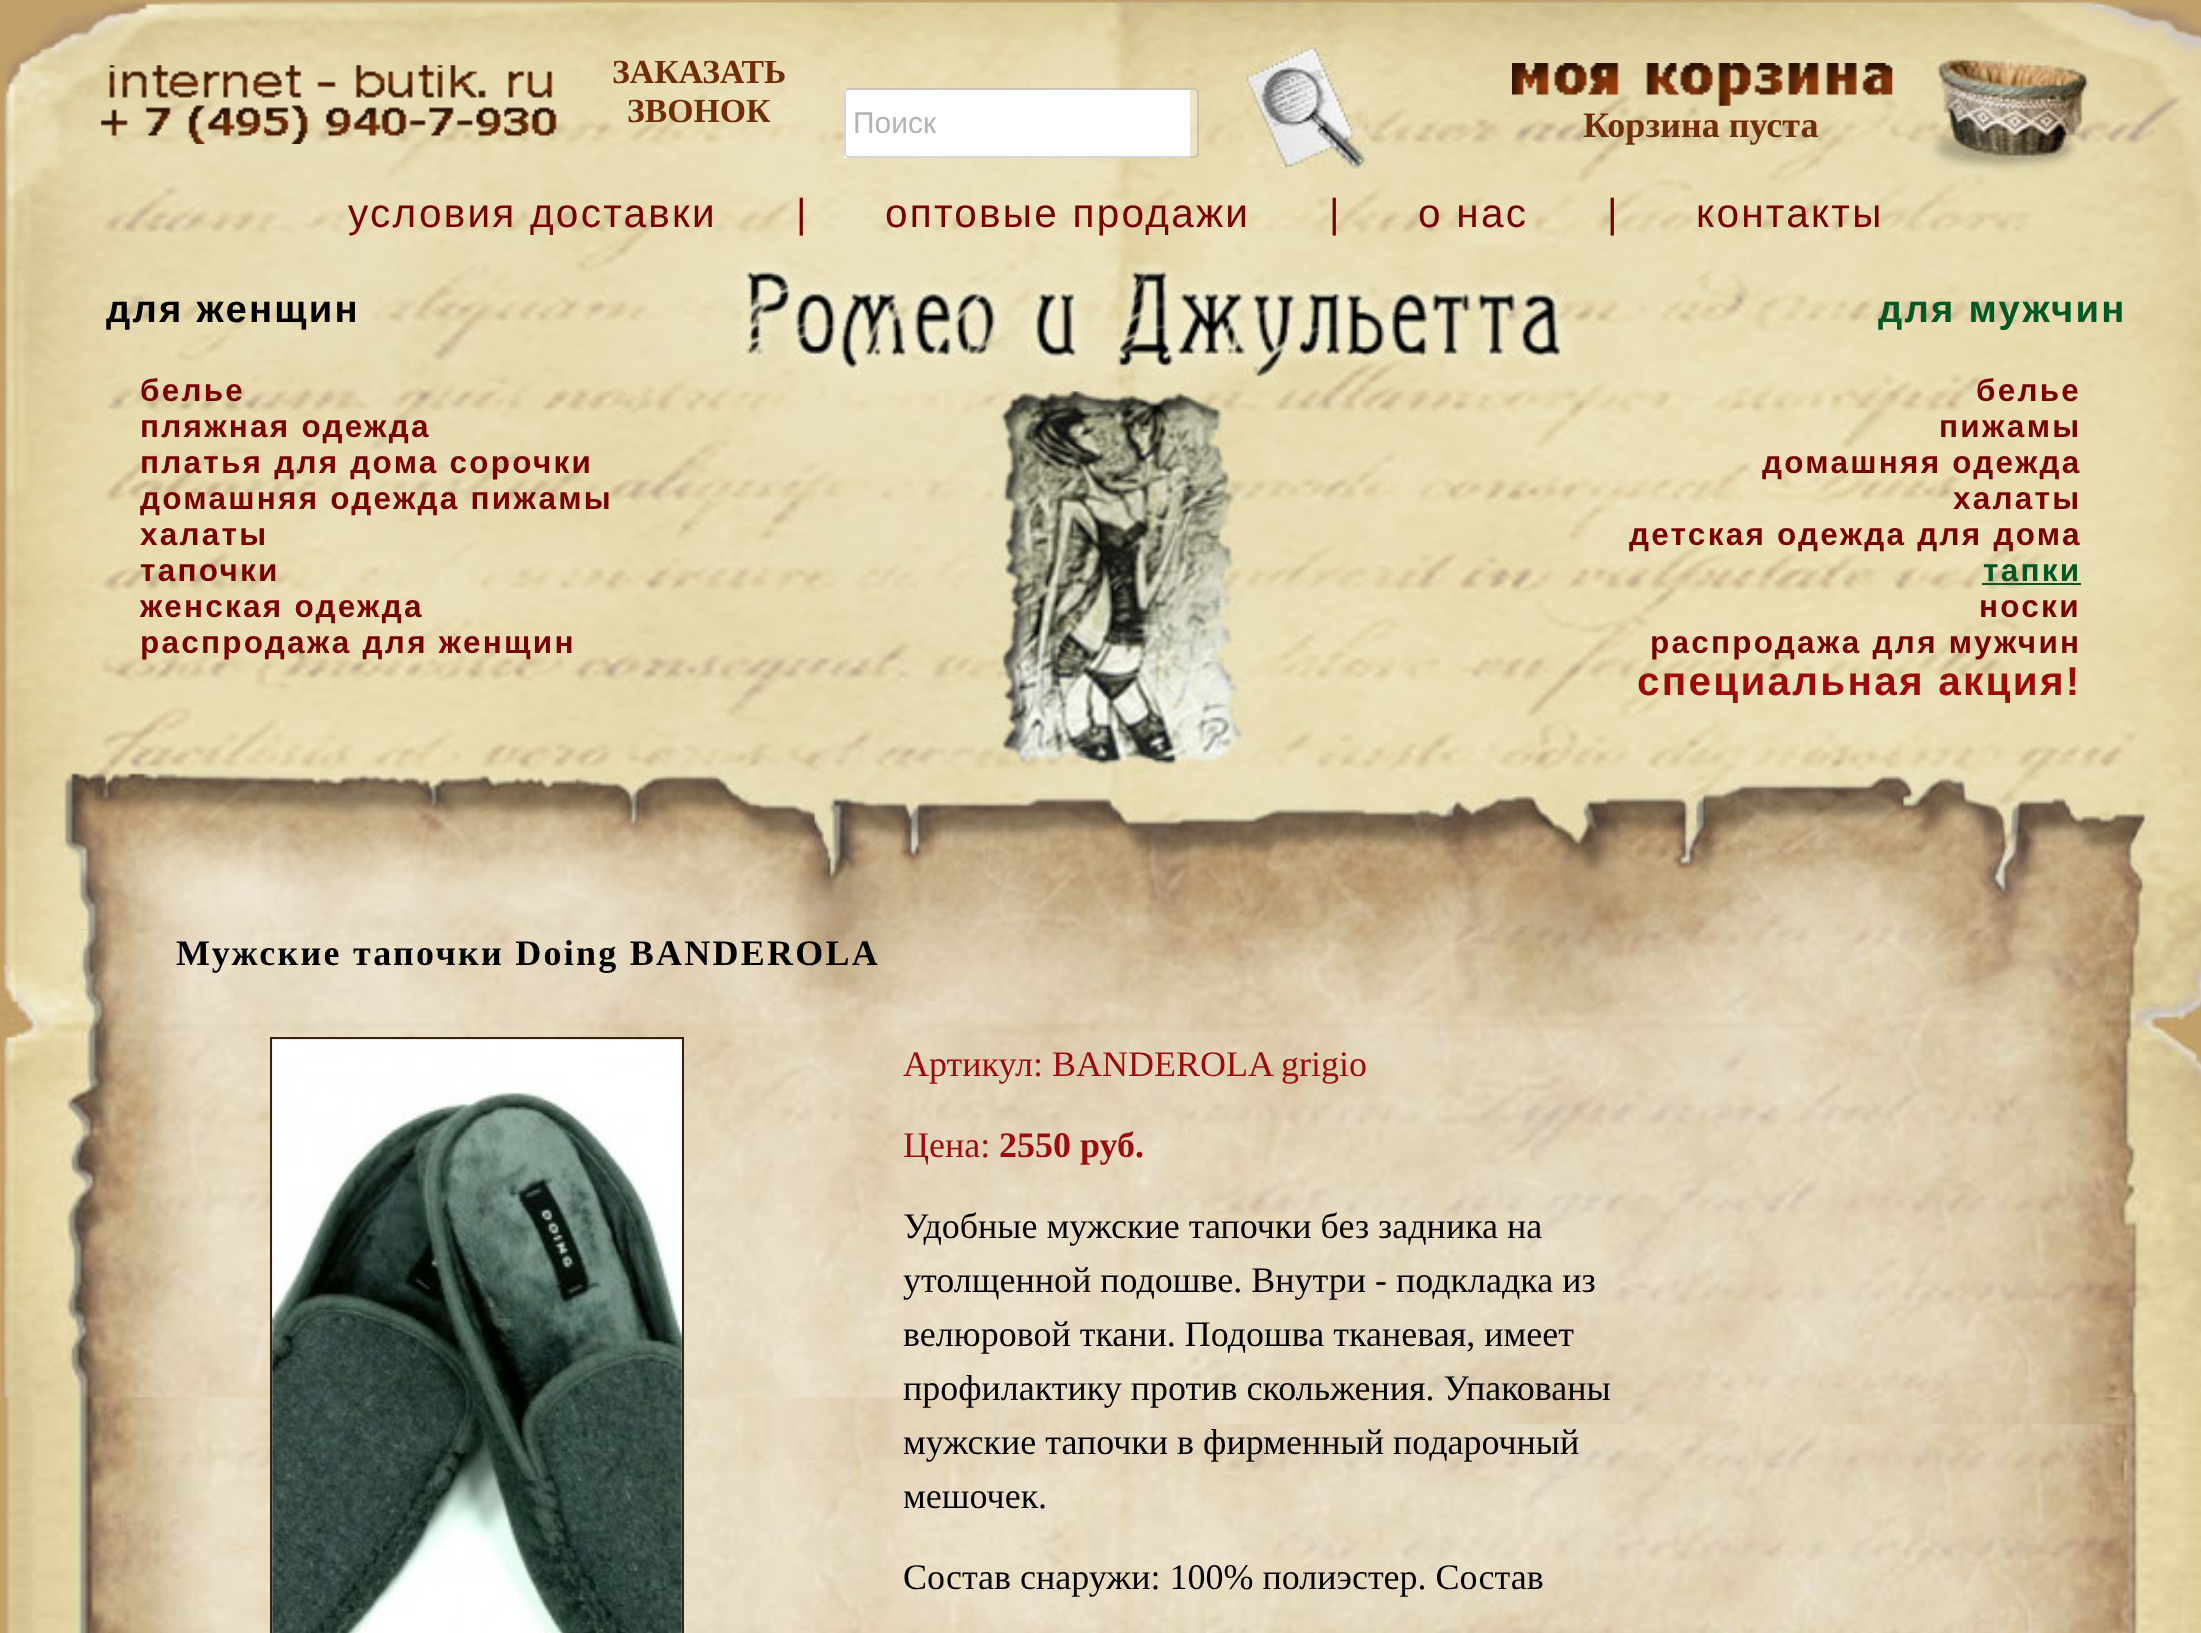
<svg xmlns="http://www.w3.org/2000/svg" width="2201" height="1633" viewBox="0 0 2201 1633">
  <rect width="100%" height="100%" fill="#c1a06a"/>
  <image x="0" y="929" width="2201" height="1" href="img/1.png"/>
  <image x="5" y="929" width="2196" height="704" href="img/7.png"/>
  <image x="0" y="929" width="2201" height="469" href="img/8.png"/>
  <image x="0" y="0" width="2201" height="930" href="img/2.png"/>
  <image x="101" y="65" width="456" height="79" href="img/3.png"/>
  <path d="M844 90h346v68H844z" fill="#fff"/>
  <image x="1244" y="45" width="124" height="124" href="img/4.png"/>
  <rect x="844" y="88" width="355" height="70" rx="5" fill="#ffffff4d"/>
  <rect x="845" y="89" width="353" height="68" rx="4" fill="none" stroke="#7676764d" stroke-width="2"/>
  <image x="1512" y="63" width="381" height="43" href="img/5.png"/>
  <image x="1924" y="54" width="169" height="121" href="img/6.png"/>
  <path d="M1982 583h99v2H1982z" fill="#005825"/>
  <path d="M271 1038h412v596H271z" fill="none" stroke="#36220c" stroke-width="2"/>
  <image x="272" y="1039" width="410" height="594" href="img/9.png"/>
  <g font-family="Liberation Serif" font-size="33.75" font-weight="bold" fill="#6f2d09">
    <text x="612" y="83">ЗАКАЗАТЬ</text>
    <text x="627" y="122">ЗВОНОК</text>
  </g>
  <text x="853" y="133" font-family="Liberation Sans" font-size="30" fill="#b3b3b3">Поиск</text>
  <text x="1583" y="137" font-family="Liberation Serif" font-size="36" font-weight="bold" fill="#6f2d09">Корзина пуста</text>
  <text x="348" y="227" font-family="Liberation Sans" font-size="40.5" letter-spacing="2.25" fill="#790000">условия доставки</text>
  <text x="796" y="227" font-family="Liberation Sans" font-size="40.5" fill="#790000">|</text>
  <text x="885" y="227" font-family="Liberation Sans" font-size="40.5" letter-spacing="2.25" fill="#790000">оптовые продажи</text>
  <text x="1329" y="227" font-family="Liberation Sans" font-size="40.5" fill="#790000">|</text>
  <text x="1418" y="227" font-family="Liberation Sans" font-size="40.5" letter-spacing="2.25" fill="#790000">о нас</text>
  <text x="1607" y="227" font-family="Liberation Sans" font-size="40.5" fill="#790000">|</text>
  <text x="1696" y="227" font-family="Liberation Sans" font-size="40.5" letter-spacing="2.25" fill="#790000">контакты</text>
  <text x="106" y="322" font-family="Liberation Sans" font-size="38.25" font-weight="bold" letter-spacing="2.25" fill="#000">для женщин</text>
  <g font-family="Liberation Sans" font-size="31.5" font-weight="bold" letter-spacing="2.25" fill="#790000">
    <text x="140" y="401">белье</text>
    <text x="140" y="437">пляжная одежда</text>
    <text x="140" y="473">платья для дома сорочки</text>
    <text x="140" y="509">домашняя одежда пижамы</text>
    <text x="140" y="545">халаты</text>
    <text x="140" y="581">тапочки</text>
    <text x="140" y="617">женская одежда</text>
    <text x="140" y="653">распродажа для женщин</text>
  </g>
  <text x="1878" y="322" font-family="Liberation Sans" font-size="38.25" font-weight="bold" letter-spacing="2.25" fill="#005825">для мужчин</text>
  <g font-family="Liberation Sans" font-size="31.5" font-weight="bold" letter-spacing="2.25" fill="#790000">
    <text x="1976" y="401">белье</text>
    <text x="1939" y="437">пижамы</text>
    <text x="1762" y="473">домашняя одежда</text>
    <text x="1953" y="509">халаты</text>
    <text x="1629" y="545">детская одежда для дома</text>
  </g>
  <text x="1983" y="581" font-family="Liberation Sans" font-size="31.5" font-weight="bold" letter-spacing="2.25" fill="#005825">тапки</text>
  <g font-family="Liberation Sans" font-size="31.5" font-weight="bold" letter-spacing="2.25" fill="#790000">
    <text x="1979" y="617">носки</text>
    <text x="1650" y="653">распродажа для мужчин</text>
  </g>
  <text x="1637" y="695" font-family="Liberation Sans" font-size="40.5" font-weight="bold" letter-spacing="2.25" fill="#9d0a0e">cпециальная акция!</text>
  <text x="176" y="965" font-family="Liberation Serif" font-size="36" font-weight="bold" letter-spacing="2.25" fill="#000">Мужские тапочки Doing BANDEROLA</text>
  <g font-family="Liberation Serif" font-size="36" fill="#9d0a0e">
    <text x="903" y="1076">Артикул: BANDEROLA grigio</text>
    <text x="903" y="1157">Цена:</text>
  </g>
  <text x="999" y="1157" font-family="Liberation Serif" font-size="36" font-weight="bold" fill="#9d0a0e">2550 руб.</text>
  <g font-family="Liberation Serif" font-size="36" fill="#000">
    <text x="903" y="1238">Удобные мужские тапочки без задника на</text>
    <text x="903" y="1292">утолщенной подошве. Внутри - подкладка из</text>
    <text x="903" y="1346">велюровой ткани. Подошва тканевая, имеет</text>
    <text x="903" y="1400">профилактику против скольжения. Упакованы</text>
    <text x="903" y="1454">мужские тапочки в фирменный подарочный</text>
    <text x="903" y="1508">мешочек.</text>
    <text x="903" y="1589">Состав снаружи: 100% полиэстер. Состав</text>
  </g>
</svg>
